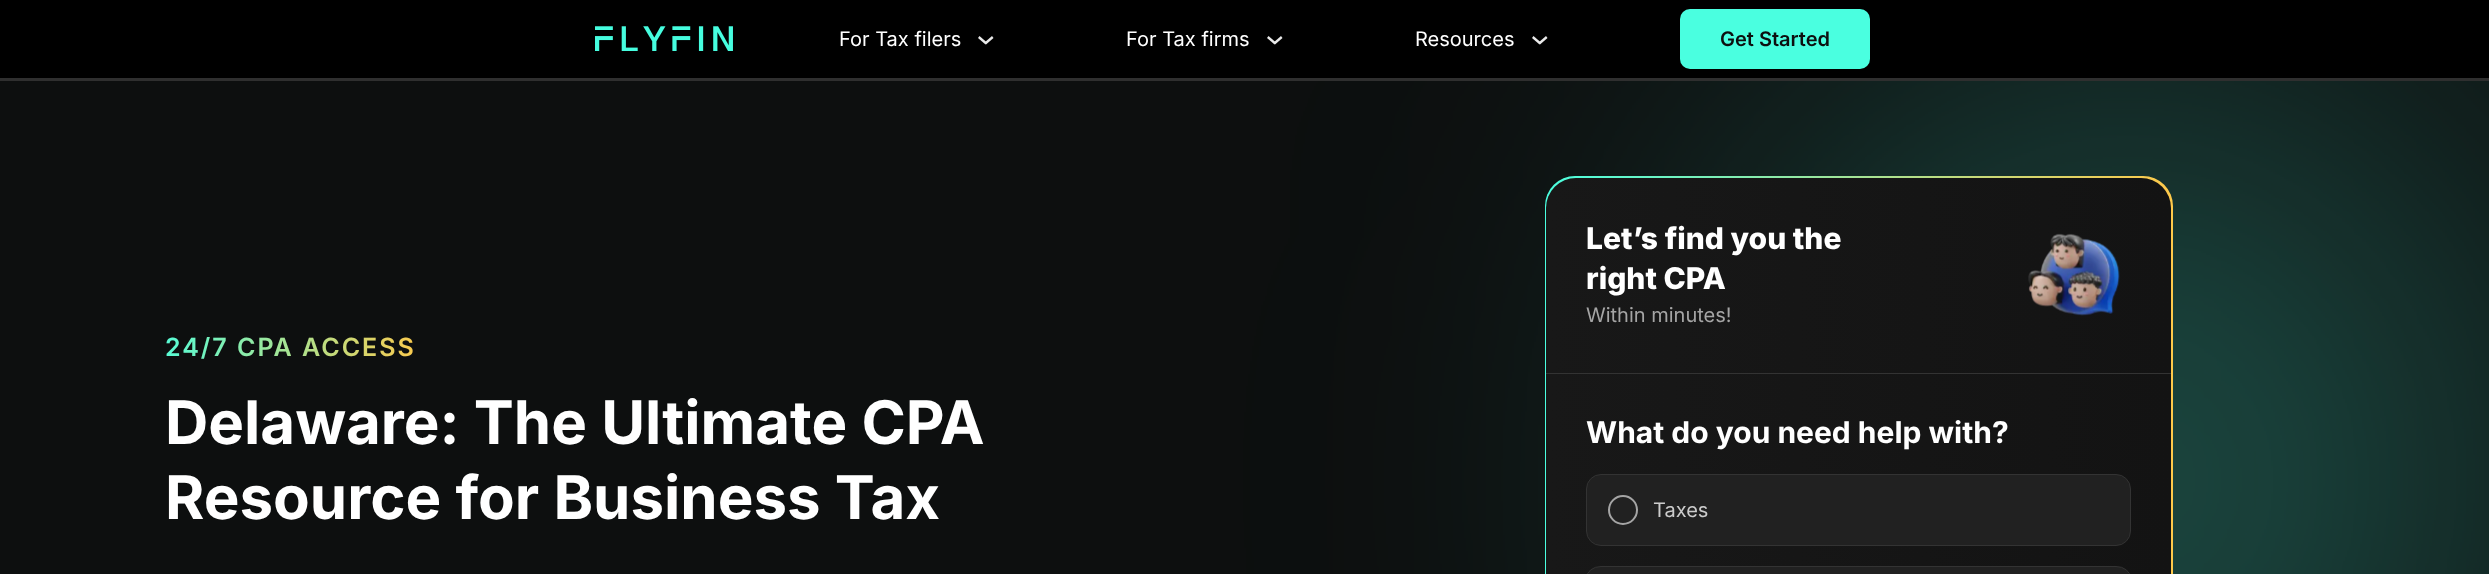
<svg xmlns="http://www.w3.org/2000/svg" width="2489" height="574" viewBox="0 0 2489 574">
  <defs>
    <linearGradient id="g1" gradientUnits="userSpaceOnUse" x1="143" y1="344" x2="425" y2="351"><stop offset="0" stop-color="#4affe0"/><stop offset="1" stop-color="#ffc94a"/></linearGradient>
    <linearGradient id="g2" gradientUnits="userSpaceOnUse" x1="1545" y1="481" x2="2173" y2="481"><stop offset="0" stop-color="#4affe0"/><stop offset="1" stop-color="#ffc94a"/></linearGradient>
    <linearGradient id="g3" gradientUnits="userSpaceOnUse" x1="1546" y1="481" x2="2171" y2="481"><stop offset="0" stop-color="#181818"/><stop offset="1" stop-color="#131313"/></linearGradient>
  </defs>
  <rect width="100%" height="100%" fill="#0d0f0f"/>
  <rect x="1765" y="80" width="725" height="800" rx="362.5" fill="#4affe04d" filter="blur(250px)"/>
  <path d="M0 0h2489v78H0z" fill="#000"/>
  <path d="M0 78h2489v3H0z" fill="#2f2f2f"/>
  <image x="595" y="26" width="138" height="25" href="img/1.png"/>
  <path d="M979.5 36L987 42.5L985.5 44.5L978 38Z" fill="#eaeaea"/>
  <path d="M984.5 42.5L992 36L993.5 38L986 44.5Z" fill="#eaeaea"/>
  <path d="M1268.5 36L1276 42.5L1274.5 44.5L1267 38Z" fill="#eaeaea"/>
  <path d="M1273.5 42.5L1281 36L1282.5 38L1275 44.5Z" fill="#eaeaea"/>
  <path d="M1533.5 36L1541 42.5L1539.5 44.5L1532 38Z" fill="#eaeaea"/>
  <path d="M1538.5 42.5L1546 36L1547.5 38L1540 44.5Z" fill="#eaeaea"/>
  <rect x="1680" y="9" width="190" height="60" rx="10" fill="#4affe0"/>
  <rect x="1545" y="176" width="628" height="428" rx="30" fill="url(#g2)"/>
  <rect x="1546" y="178" width="625" height="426" rx="30" fill="url(#g3)"/>
  <image x="2028" y="233" width="92" height="83" href="img/2.png"/>
  <path d="M1546 373h625v1H1546z" fill="#333"/>
  <rect x="1586.5" y="474.5" width="544" height="71" rx="14.5" fill="#212121" stroke="#333"/>
  <circle cx="1623" cy="510" r="14" fill="none" stroke="#a5a5a5" stroke-width="2"/>
  <rect x="1586.5" y="566.5" width="544" height="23" rx="14.5" fill="#212121" stroke="#333"/>
  <g font-family="Inter" font-size="20" fill="#fff">
    <text x="839" y="46">For Tax filers</text>
    <text x="1126" y="46">For Tax firms</text>
    <text x="1415" y="46">Resources</text>
  </g>
  <text x="1720" y="46" font-family="Inter" font-size="20" font-weight="600" fill="#0d0f0f">Get Started</text>
  <text x="165" y="356" font-family="Inter" font-size="25" font-weight="600" letter-spacing="2" fill="url(#g1)">24/7 CPA ACCESS</text>
  <g font-family="Inter" font-size="60" font-weight="bold" fill="#fff">
    <text x="165" y="444">Delaware: The Ultimate CPA</text>
    <text x="165" y="519">Resource for Business Tax</text>
  </g>
  <g font-family="Inter" font-size="30" font-weight="800" fill="#fff">
    <text x="1586" y="249">Let’s find you the</text>
    <text x="1586" y="289">right CPA</text>
  </g>
  <text x="1586" y="322" font-family="Inter" font-size="20" fill="#a5a5a5">Within minutes!</text>
  <text x="1586" y="443" font-family="Inter" font-size="30" font-weight="bold" fill="#fff">What do you need help with?</text>
  <text x="1653" y="517" font-family="Inter" font-size="20" fill="#ccc">Taxes</text>
</svg>
